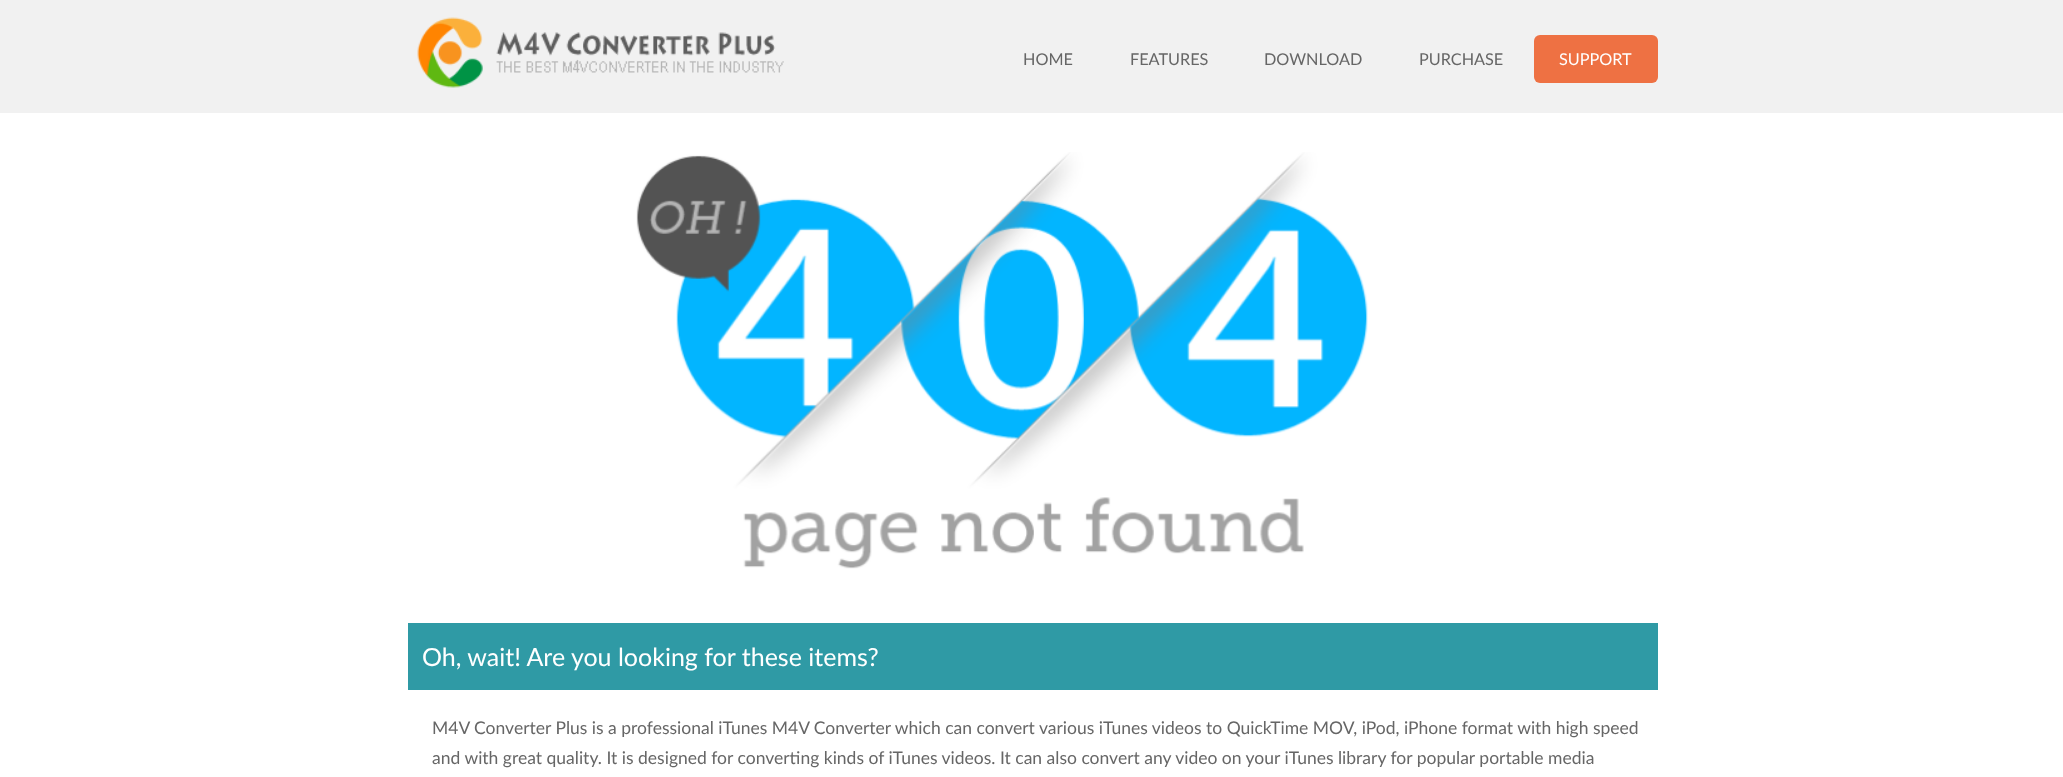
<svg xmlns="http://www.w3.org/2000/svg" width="2063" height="777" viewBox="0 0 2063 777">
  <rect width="100%" height="100%" fill="#fff"/>
  <path d="M0 0h2063v113H0z" fill="#f1f1f1"/>
  <image x="417" y="17" width="367" height="71" href="img/1.png"/>
  <rect x="1534" y="35" width="124" height="48" rx="6" fill="#ee7143"/>
  <image x="636" y="152" width="732" height="417" href="img/2.png"/>
  <path d="M408 623h1250v67H408z" fill="#2f9aa5"/>
  <g font-family="Lato" font-size="16.25" fill="#666">
    <text x="1023" y="65">HOME</text>
    <text x="1130" y="65">FEATURES</text>
    <text x="1264" y="65">DOWNLOAD</text>
    <text x="1419" y="65">PURCHASE</text>
  </g>
  <text x="1559" y="65" font-family="Lato" font-size="16.25" fill="#fff">SUPPORT</text>
  <text x="422" y="666" font-family="Lato" font-size="25" fill="#fff">Oh, wait! Are you looking for these items?</text>
  <g font-family="Lato" font-size="17.5" fill="#666">
    <text x="432" y="734">M4V Converter Plus is a professional iTunes M4V Converter which can convert various iTunes videos to QuickTime MOV, iPod, iPhone format with high speed</text>
    <text x="432" y="764">and with great quality. It is designed for converting kinds of iTunes videos. It can also convert any video on your iTunes library for popular portable media</text>
  </g>
</svg>
